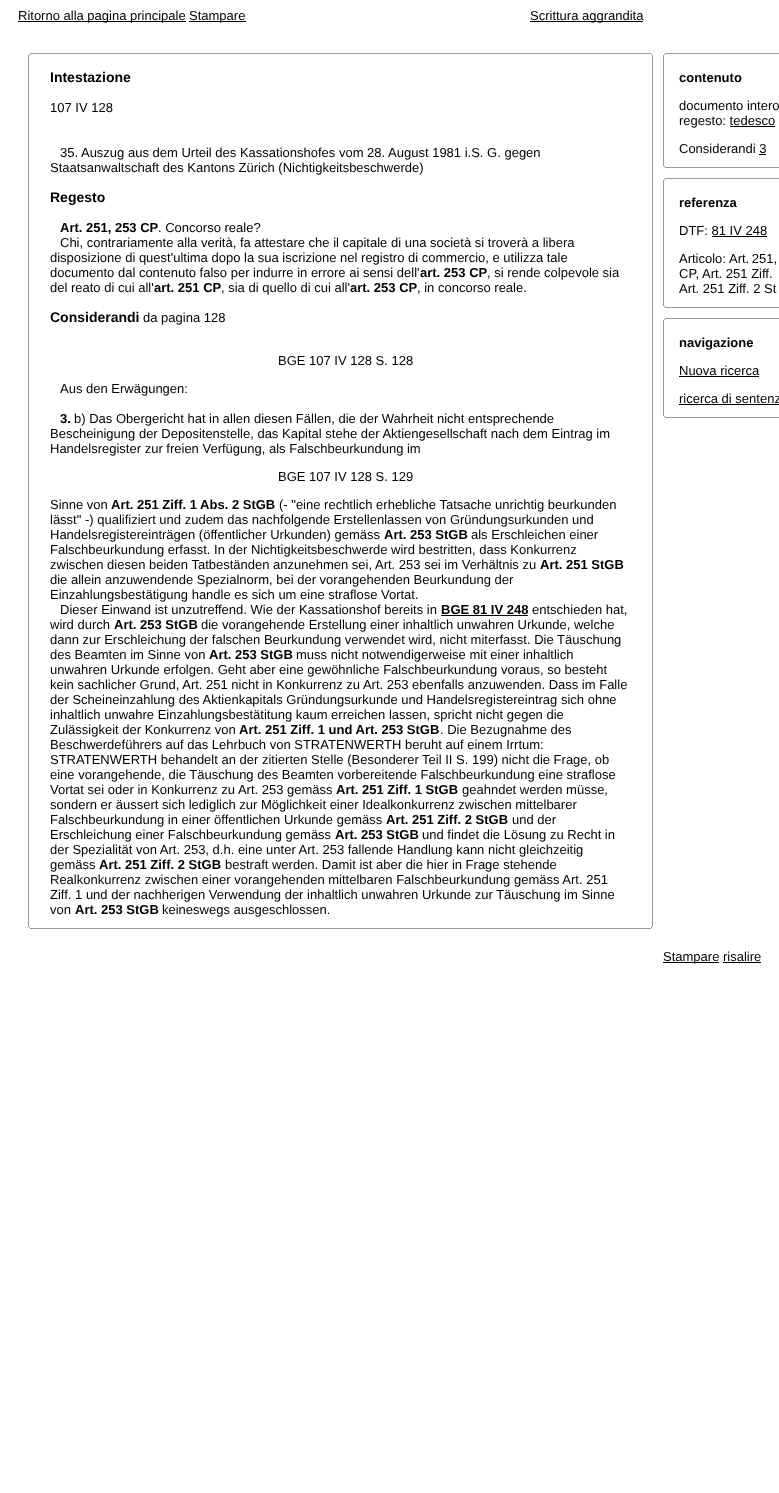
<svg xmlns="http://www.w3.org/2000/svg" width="779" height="1493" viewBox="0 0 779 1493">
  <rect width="100%" height="100%" fill="#fff"/>
  <path d="M18 21h168v1H18z" fill="#000"/>
  <path d="M189 21h57v1H189z" fill="#000"/>
  <path d="M530 21h113v1H530z" fill="#000"/>
  <path d="M30 53h621v1H30z" fill="#999"/>
  <path d="M651 54h1v1H651z" fill="#999"/>
  <path d="M29 54h1v1H29z" fill="#999"/>
  <path d="M652 55h1v872H652z" fill="#999"/>
  <path d="M28 55h1v872H28z" fill="#999"/>
  <path d="M441 615h87v1H441z" fill="#000"/>
  <path d="M651 927h1v1H651z" fill="#999"/>
  <path d="M29 927h1v1H29z" fill="#999"/>
  <path d="M30 928h621v1H30z" fill="#999"/>
  <path d="M665 53h114v1H665z" fill="#999"/>
  <path d="M664 54h1v1H664z" fill="#999"/>
  <path d="M663 55h1v111H663z" fill="#999"/>
  <path d="M730 126h45v1H730z" fill="#000"/>
  <path d="M759 154h7v1H759z" fill="#000"/>
  <path d="M664 166h1v1H664z" fill="#999"/>
  <path d="M665 167h114v1H665z" fill="#999"/>
  <path d="M665 178h114v1H665z" fill="#999"/>
  <path d="M664 179h1v1H664z" fill="#999"/>
  <path d="M663 180h1v126H663z" fill="#999"/>
  <path d="M712 236h55v1H712z" fill="#000"/>
  <path d="M664 306h1v1H664z" fill="#999"/>
  <path d="M665 307h114v1H665z" fill="#999"/>
  <path d="M665 318h114v1H665z" fill="#999"/>
  <path d="M664 319h1v1H664z" fill="#999"/>
  <path d="M663 320h1v96H663z" fill="#999"/>
  <path d="M679 376h80v1H679z" fill="#000"/>
  <path d="M679 404h100v1H679z" fill="#000"/>
  <path d="M664 416h1v1H664z" fill="#999"/>
  <path d="M665 417h114v1H665z" fill="#999"/>
  <path d="M663 962h56v1H663z" fill="#000"/>
  <path d="M723 962h38v1H723z" fill="#000"/>
  <g font-family="Liberation Sans" font-size="13" fill="#000">
    <text x="18" y="20">Ritorno alla pagina principale</text>
    <text x="189" y="20">Stampare</text>
    <text x="530" y="20">Scrittura aggrandita</text>
  </g>
  <text x="50" y="82" font-family="Liberation Sans" font-size="14" font-weight="bold" fill="#000">Intestazione</text>
  <g font-family="Liberation Sans" font-size="13" fill="#000">
    <text x="50" y="112">107 IV 128</text>
    <text x="60" y="157">35. Auszug aus dem Urteil des Kassationshofes vom 28. August 1981 i.S. G. gegen</text>
    <text x="50" y="172">Staatsanwaltschaft des Kantons Zürich (Nichtigkeitsbeschwerde)</text>
  </g>
  <text x="50" y="202" font-family="Liberation Sans" font-size="14" font-weight="bold" fill="#000">Regesto</text>
  <g font-family="Liberation Sans" font-size="13" fill="#000">
    <text x="158" y="232">. Concorso reale?</text>
    <text x="60" y="247">Chi, contrariamente alla verità, fa attestare che il capitale di una società si troverà a libera</text>
    <text x="50" y="262">disposizione di quest'ultima dopo la sua iscrizione nel registro di commercio, e utilizza tale</text>
    <text x="50" y="277">documento dal contenuto falso per indurre in errore ai sensi dell'</text>
  </g>
  <text x="420" y="277" font-family="Liberation Sans" font-size="13" font-weight="bold" fill="#000">art. 253 CP</text>
  <g font-family="Liberation Sans" font-size="13" fill="#000">
    <text x="487" y="277">, si rende colpevole sia</text>
    <text x="50" y="292">del reato di cui all'</text>
  </g>
  <text x="154" y="292" font-family="Liberation Sans" font-size="13" font-weight="bold" fill="#000">art. 251 CP</text>
  <text x="221" y="292" font-family="Liberation Sans" font-size="13" fill="#000">, sia di quello di cui all'</text>
  <text x="350" y="292" font-family="Liberation Sans" font-size="13" font-weight="bold" fill="#000">art. 253 CP</text>
  <text x="417" y="292" font-family="Liberation Sans" font-size="13" fill="#000">, in concorso reale.</text>
  <text x="60" y="232" font-family="Liberation Sans" font-size="13" font-weight="bold" fill="#000">Art. 251, 253 CP</text>
  <text x="50" y="322" font-family="Liberation Sans" font-size="14" font-weight="bold" fill="#000">Considerandi</text>
  <g font-family="Liberation Sans" font-size="13" fill="#000">
    <text x="143" y="322">da pagina 128</text>
    <text x="278" y="365">BGE 107 IV 128 S. 128</text>
    <text x="60" y="393">Aus den Erwägungen:</text>
  </g>
  <text x="60" y="423" font-family="Liberation Sans" font-size="13" font-weight="bold" fill="#000">3.</text>
  <g font-family="Liberation Sans" font-size="13" fill="#000">
    <text x="74" y="423">b) Das Obergericht hat in allen diesen Fällen, die der Wahrheit nicht entsprechende</text>
    <text x="50" y="438">Bescheinigung der Depositenstelle, das Kapital stehe der Aktiengesellschaft nach dem Eintrag im</text>
    <text x="50" y="453">Handelsregister zur freien Verfügung, als Falschbeurkundung im</text>
    <text x="278" y="481">BGE 107 IV 128 S. 129</text>
    <text x="50" y="509">Sinne von</text>
  </g>
  <text x="111" y="509" font-family="Liberation Sans" font-size="13" font-weight="bold" fill="#000">Art. 251 Ziff. 1 Abs. 2 StGB</text>
  <g font-family="Liberation Sans" font-size="13" fill="#000">
    <text x="279" y="509">(- "eine rechtlich erhebliche Tatsache unrichtig beurkunden</text>
    <text x="50" y="524">lässt" -) qualifiziert und zudem das nachfolgende Erstellenlassen von Gründungsurkunden und</text>
    <text x="50" y="539">Handelsregistereinträgen (öffentlicher Urkunden) gemäss</text>
  </g>
  <text x="384" y="539" font-family="Liberation Sans" font-size="13" font-weight="bold" fill="#000">Art. 253 StGB</text>
  <g font-family="Liberation Sans" font-size="13" fill="#000">
    <text x="471" y="539">als Erschleichen einer</text>
    <text x="50" y="554">Falschbeurkundung erfasst. In der Nichtigkeitsbeschwerde wird bestritten, dass Konkurrenz</text>
    <text x="50" y="569">zwischen diesen beiden Tatbeständen anzunehmen sei, Art. 253 sei im Verhältnis zu</text>
  </g>
  <text x="540" y="569" font-family="Liberation Sans" font-size="13" font-weight="bold" fill="#000">Art. 251 StGB</text>
  <g font-family="Liberation Sans" font-size="13" fill="#000">
    <text x="50" y="584">die allein anzuwendende Spezialnorm, bei der vorangehenden Beurkundung der</text>
    <text x="50" y="599">Einzahlungsbestätigung handle es sich um eine straflose Vortat.</text>
    <text x="60" y="614">Dieser Einwand ist unzutreffend. Wie der Kassationshof bereits in</text>
  </g>
  <text x="441" y="614" font-family="Liberation Sans" font-size="13" font-weight="bold" fill="#000">BGE 81 IV 248</text>
  <g font-family="Liberation Sans" font-size="13" fill="#000">
    <text x="532" y="614">entschieden hat,</text>
    <text x="50" y="629">wird durch</text>
  </g>
  <text x="114" y="629" font-family="Liberation Sans" font-size="13" font-weight="bold" fill="#000">Art. 253 StGB</text>
  <g font-family="Liberation Sans" font-size="13" fill="#000">
    <text x="201" y="629">die vorangehende Erstellung einer inhaltlich unwahren Urkunde, welche</text>
    <text x="50" y="644">dann zur Erschleichung der falschen Beurkundung verwendet wird, nicht miterfasst. Die Täuschung</text>
    <text x="50" y="659">des Beamten im Sinne von</text>
  </g>
  <text x="209" y="659" font-family="Liberation Sans" font-size="13" font-weight="bold" fill="#000">Art. 253 StGB</text>
  <g font-family="Liberation Sans" font-size="13" fill="#000">
    <text x="296" y="659">muss nicht notwendigerweise mit einer inhaltlich</text>
    <text x="50" y="674">unwahren Urkunde erfolgen. Geht aber eine gewöhnliche Falschbeurkundung voraus, so besteht</text>
    <text x="50" y="689">kein sachlicher Grund, Art. 251 nicht in Konkurrenz zu Art. 253 ebenfalls anzuwenden. Dass im Falle</text>
    <text x="50" y="704">der Scheineinzahlung des Aktienkapitals Gründungsurkunde und Handelsregistereintrag sich ohne</text>
    <text x="50" y="719">inhaltlich unwahre Einzahlungsbestätitung kaum erreichen lassen, spricht nicht gegen die</text>
    <text x="50" y="734">Zulässigkeit der Konkurrenz von</text>
  </g>
  <text x="239" y="734" font-family="Liberation Sans" font-size="13" font-weight="bold" fill="#000">Art. 251 Ziff. 1 und Art. 253 StGB</text>
  <g font-family="Liberation Sans" font-size="13" fill="#000">
    <text x="440" y="734">. Die Bezugnahme des</text>
    <text x="50" y="749">Beschwerdeführers auf das Lehrbuch von STRATENWERTH beruht auf einem Irrtum:</text>
    <text x="50" y="764">STRATENWERTH behandelt an der zitierten Stelle (Besonderer Teil II S. 199) nicht die Frage, ob</text>
    <text x="50" y="779">eine vorangehende, die Täuschung des Beamten vorbereitende Falschbeurkundung eine straflose</text>
    <text x="50" y="794">Vortat sei oder in Konkurrenz zu Art. 253 gemäss</text>
  </g>
  <text x="336" y="794" font-family="Liberation Sans" font-size="13" font-weight="bold" fill="#000">Art. 251 Ziff. 1 StGB</text>
  <g font-family="Liberation Sans" font-size="13" fill="#000">
    <text x="462" y="794">geahndet werden müsse,</text>
    <text x="50" y="809">sondern er äussert sich lediglich zur Möglichkeit einer Idealkonkurrenz zwischen mittelbarer</text>
    <text x="50" y="824">Falschbeurkundung in einer öffentlichen Urkunde gemäss</text>
  </g>
  <text x="386" y="824" font-family="Liberation Sans" font-size="13" font-weight="bold" fill="#000">Art. 251 Ziff. 2 StGB</text>
  <g font-family="Liberation Sans" font-size="13" fill="#000">
    <text x="512" y="824">und der</text>
    <text x="50" y="839">Erschleichung einer Falschbeurkundung gemäss</text>
  </g>
  <text x="335" y="839" font-family="Liberation Sans" font-size="13" font-weight="bold" fill="#000">Art. 253 StGB</text>
  <g font-family="Liberation Sans" font-size="13" fill="#000">
    <text x="422" y="839">und findet die Lösung zu Recht in</text>
    <text x="50" y="854">der Spezialität von Art. 253, d.h. eine unter Art. 253 fallende Handlung kann nicht gleichzeitig</text>
    <text x="50" y="869">gemäss</text>
  </g>
  <text x="99" y="869" font-family="Liberation Sans" font-size="13" font-weight="bold" fill="#000">Art. 251 Ziff. 2 StGB</text>
  <g font-family="Liberation Sans" font-size="13" fill="#000">
    <text x="225" y="869">bestraft werden. Damit ist aber die hier in Frage stehende</text>
    <text x="50" y="884">Realkonkurrenz zwischen einer vorangehenden mittelbaren Falschbeurkundung gemäss Art. 251</text>
    <text x="50" y="899">Ziff. 1 und der nachherigen Verwendung der inhaltlich unwahren Urkunde zur Täuschung im Sinne</text>
    <text x="50" y="914">von</text>
  </g>
  <text x="75" y="914" font-family="Liberation Sans" font-size="13" font-weight="bold" fill="#000">Art. 253 StGB</text>
  <text x="162" y="914" font-family="Liberation Sans" font-size="13" fill="#000">keineswegs ausgeschlossen.</text>
  <text x="679" y="82" font-family="Liberation Sans" font-size="13" font-weight="bold" fill="#000">contenuto</text>
  <g font-family="Liberation Sans" font-size="13" fill="#000">
    <text x="679" y="110">documento intero</text>
    <text x="679" y="125">regesto: tedesco</text>
    <text x="679" y="153">Considerandi 3</text>
  </g>
  <text x="679" y="207" font-family="Liberation Sans" font-size="13" font-weight="bold" fill="#000">referenza</text>
  <g font-family="Liberation Sans" font-size="13" fill="#000">
    <text x="679" y="235">DTF: 81 IV 248</text>
    <text x="679" y="263">Articolo:</text>
    <text x="729" y="263" word-spacing="-1">Art. 251,</text>
    <text x="679" y="278">CP,</text>
    <text x="702" y="278">Art. 251 Ziff.</text>
    <text x="679" y="293">Art. 251 Ziff. 2 St</text>
  </g>
  <text x="679" y="347" font-family="Liberation Sans" font-size="13" font-weight="bold" fill="#000">navigazione</text>
  <g font-family="Liberation Sans" font-size="13" fill="#000">
    <text x="679" y="375">Nuova ricerca</text>
    <text x="679" y="403">ricerca di sentenz</text>
    <text x="663" y="961">Stampare risalire</text>
  </g>
</svg>
